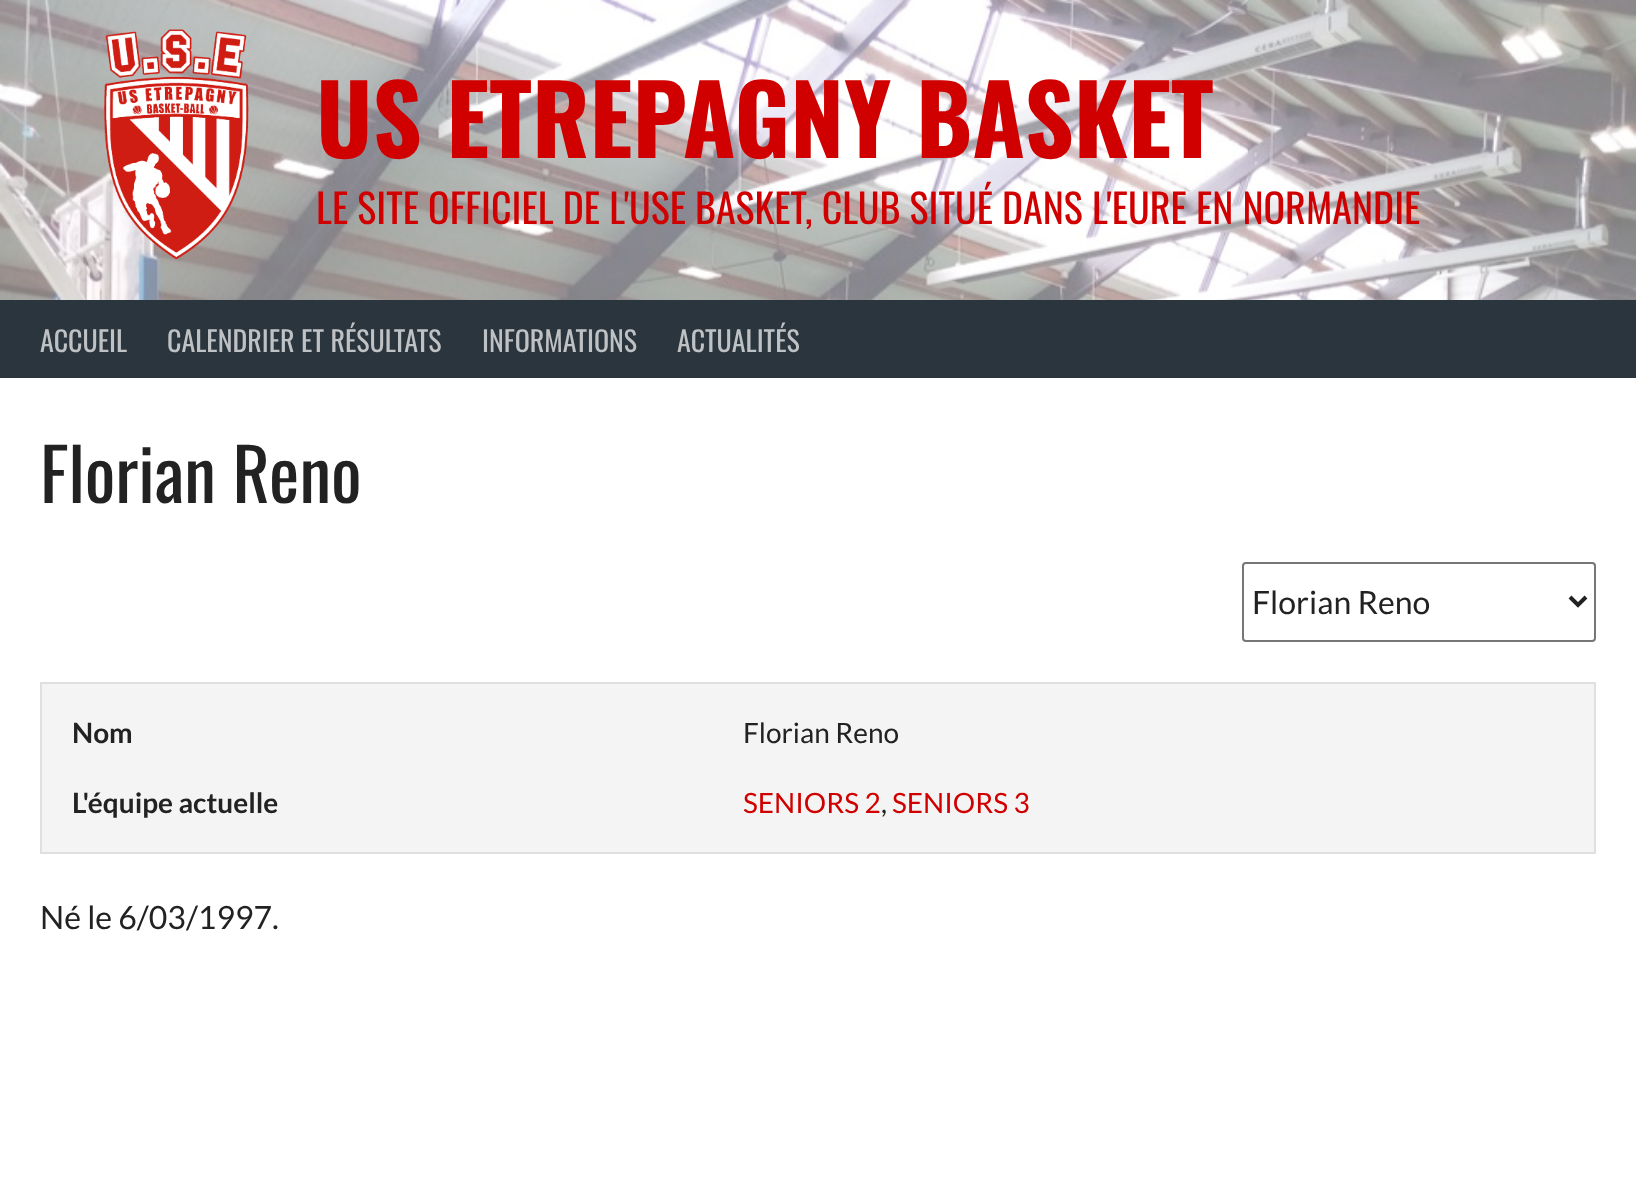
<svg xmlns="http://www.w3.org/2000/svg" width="1636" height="1199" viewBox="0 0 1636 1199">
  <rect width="100%" height="100%" fill="#fff"/>
  <image x="0" y="0" width="1636" height="300" href="img/1.png"/>
  <path d="M0 0h1636v300H0z" fill="#ffffff82"/>
  <image x="104" y="29" width="145" height="231" href="img/2.png"/>
  <path d="M0 300h1636v78H0z" fill="#2b353e"/>
  <rect x="1243" y="563" width="352" height="78" rx="3" fill="none" stroke="#767676" stroke-width="2"/>
  <path d="M1570 597L1578 605L1586 597" fill="none" stroke="#222" stroke-width="4"/>
  <path d="M41 683h1554v170H41z" fill="#f4f4f4" stroke="#e0e0e0" stroke-width="2"/>
  <text x="316" y="158" font-family="Oswald" font-size="96" font-weight="bold" fill="#d10000">US ETREPAGNY BASKET</text>
  <text x="316" y="224" font-family="Oswald" font-size="40" fill="#d10000">LE SITE OFFICIEL DE L'USE BASKET, CLUB SITUÉ DANS L'EURE EN NORMANDIE</text>
  <g font-family="Oswald" font-size="28" fill="#bfc2c5">
    <text x="40" y="352">ACCUEIL</text>
    <text x="167" y="352">CALENDRIER ET RÉSULTATS</text>
    <text x="482" y="352">INFORMATIONS</text>
    <text x="677" y="352">ACTUALITÉS</text>
  </g>
  <text x="40" y="503" font-family="Oswald" font-size="72" fill="#222">Florian Reno</text>
  <text x="1252" y="614" font-family="Lato" font-size="32" fill="#222">Florian Reno</text>
  <text x="72" y="743" font-family="Lato" font-size="28" font-weight="bold" fill="#222">Nom</text>
  <text x="743" y="743" font-family="Lato" font-size="28" fill="#222">Florian Reno</text>
  <text x="72" y="813" font-family="Lato" font-size="28" font-weight="bold" fill="#222">L'équipe actuelle</text>
  <text x="743" y="813" font-family="Lato" font-size="28" fill="#d10000">SENIORS 2</text>
  <text x="881" y="813" font-family="Lato" font-size="28" fill="#222">,</text>
  <text x="892" y="813" font-family="Lato" font-size="28" fill="#d10000">SENIORS 3</text>
  <text x="40" y="929" font-family="Lato" font-size="32" fill="#222">Né le 6/03/1997.</text>
</svg>
